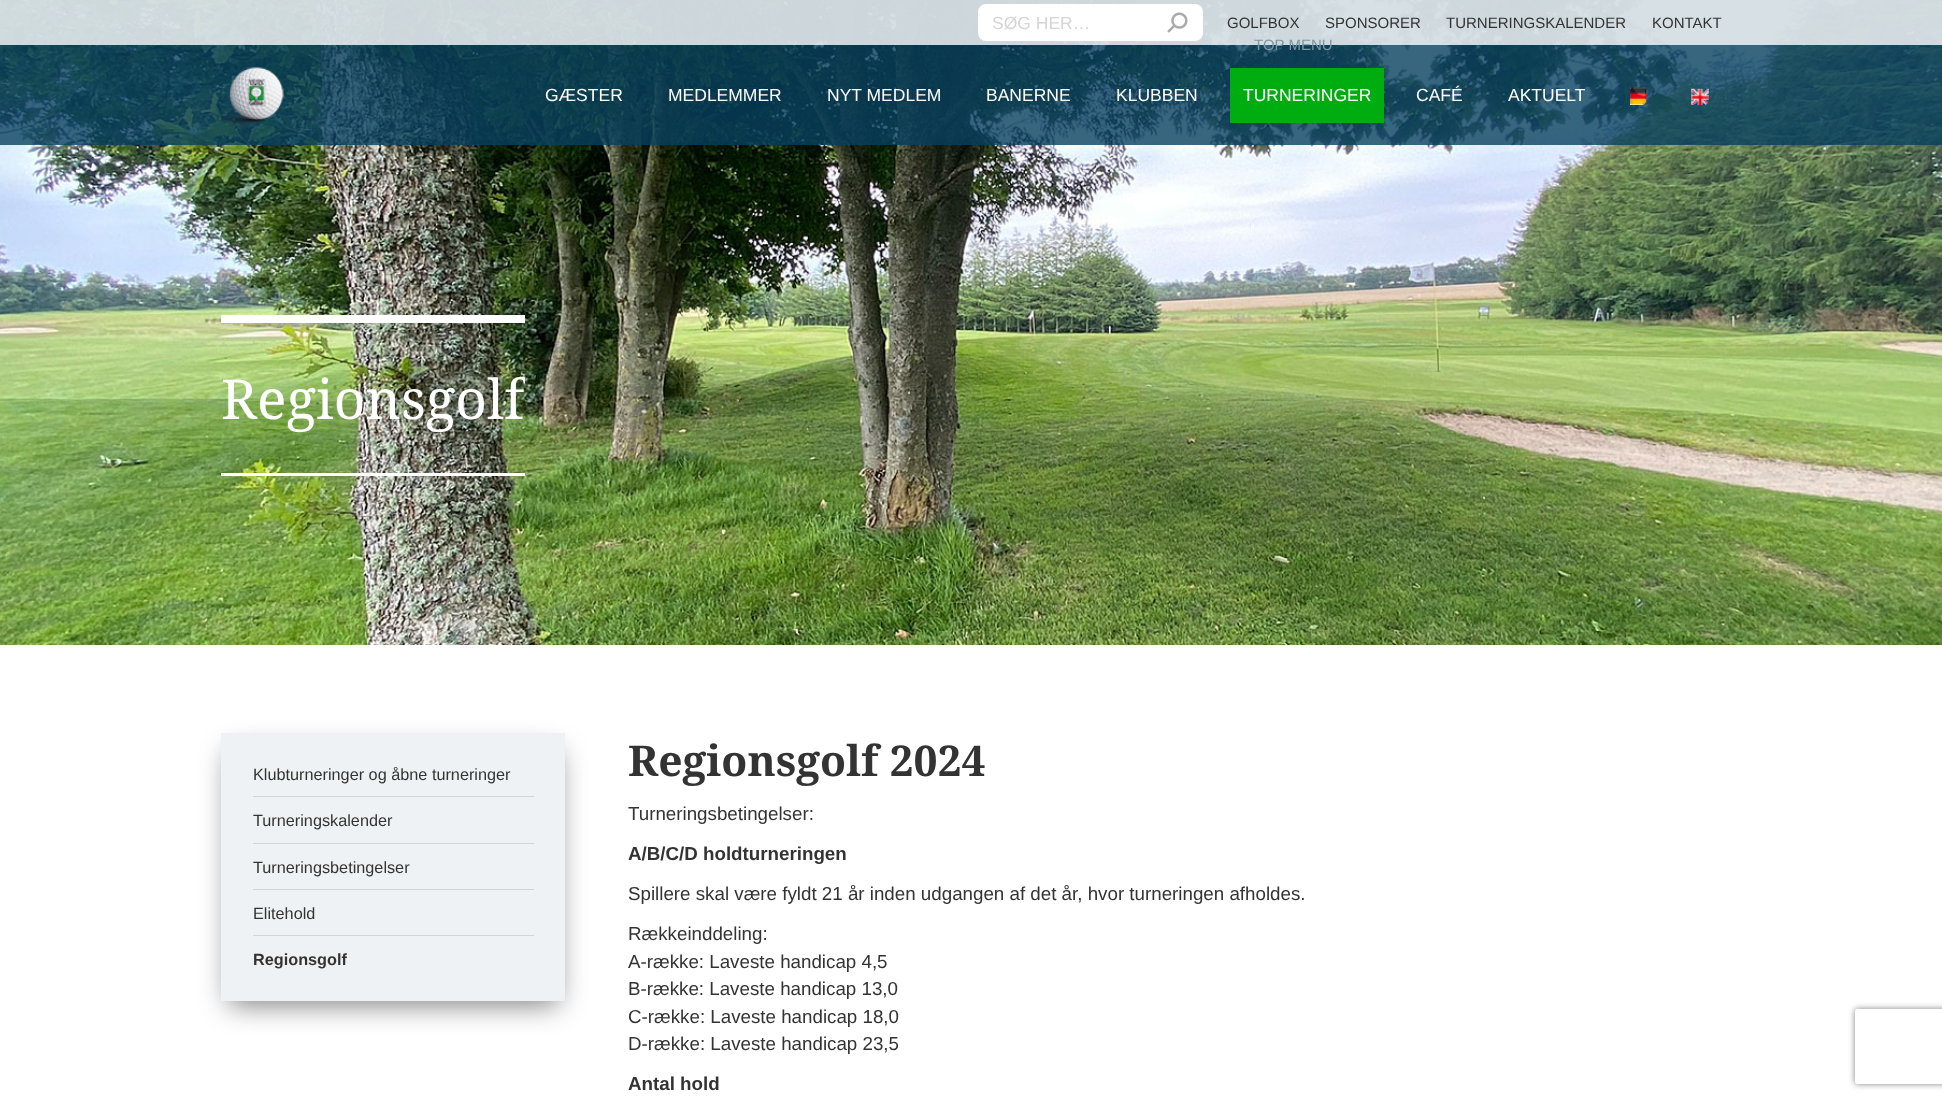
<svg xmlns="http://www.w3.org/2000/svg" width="1942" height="1101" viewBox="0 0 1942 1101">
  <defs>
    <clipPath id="clip1"><path d="M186 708H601V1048H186ZM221 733H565V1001H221Z" clip-rule="evenodd"/></clipPath>
    <clipPath id="clip2"><path d="M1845 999H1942V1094H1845ZM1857.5 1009H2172.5C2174 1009 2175 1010 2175 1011.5V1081.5C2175 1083 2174 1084 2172.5 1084H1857.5C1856 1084 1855 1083 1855 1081.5V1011.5C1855 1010 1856 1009 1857.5 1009Z" clip-rule="evenodd"/></clipPath>
    <clipPath id="clip3"><path d="M221 323h304v150H221z"/></clipPath>
  </defs>
  <rect width="100%" height="100%" fill="#fff"/>
  <image x="0" y="0" width="1942" height="645" href="img/5.png"/>
  <path d="M0 0h1942v145H0z" fill="#08405fcc"/>
  <path d="M0 0h1942v45H0z" fill="#ffffffcc"/>
  <rect x="978" y="4" width="225" height="37" rx="8" fill="#fff"/>
  <image x="1167" y="12" width="21" height="21" href="img/1.png"/>
  <image x="224" y="67" width="60" height="56" href="img/2.png"/>
  <path d="M1230 68h154v55H1230z" fill="#00ad11"/>
  <image x="1630" y="87" width="17" height="18" href="img/3.png"/>
  <image x="1691" y="88" width="18" height="17" href="img/4.png"/>
  <path d="M221 315h304v8H221z" fill="#fff"/>
  <path d="M221 473h304v3H221z" fill="#fff"/>
  <g clip-path="url(#clip1)">
    <path d="M229 751h329v254H229z" fill="#00000080" filter="blur(14px)"/>
  </g>
  <path d="M221 733h344v268H221z" fill="#08405f12"/>
  <path d="M253 796h281v1H253z" fill="#d2d5d7"/>
  <path d="M253 843h281v1H253z" fill="#d2d5d7"/>
  <path d="M253 889h281v1H253z" fill="#d2d5d7"/>
  <path d="M253 935h281v1H253z" fill="#d2d5d7"/>
  <g clip-path="url(#clip2)">
    <rect x="1855" y="1009" width="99" height="75" rx="2.5" fill="#808080" filter="blur(3px)"/>
  </g>
  <text x="992" y="29" font-family="Liberation Sans" font-size="17.5" fill="#d5d5d5">SØG HER…</text>
  <g font-family="Liberation Sans" font-size="15" fill="#333">
    <text x="1227" y="28">GOLFBOX</text>
    <text x="1325" y="28">SPONSORER</text>
    <text x="1446" y="28">TURNERINGSKALENDER</text>
    <text x="1652" y="28">KONTAKT</text>
  </g>
  <text x="1254" y="50" font-family="Liberation Sans" font-size="15" fill="#7c97a4">TOP MENU</text>
  <g font-family="Liberation Sans" font-size="17.5" fill="#fff">
    <text x="545" y="101">GÆSTER</text>
    <text x="668" y="101">MEDLEMMER</text>
    <text x="827" y="101">NYT MEDLEM</text>
    <text x="986" y="101">BANERNE</text>
    <text x="1116" y="101">KLUBBEN</text>
    <text x="1243" y="101">TURNERINGER</text>
    <text x="1416" y="101">CAFÉ</text>
    <text x="1508" y="101">AKTUELT</text>
  </g>
  <g clip-path="url(#clip3)">
    <text x="221" y="419" font-family="Noto Serif" font-size="55" fill="#fff">Regionsgolf</text>
  </g>
  <g font-family="Liberation Sans" font-size="16.25" fill="#333">
    <text x="253" y="780">Klubturneringer og åbne turneringer</text>
    <text x="253" y="826">Turneringskalender</text>
    <text x="253" y="873">Turneringsbetingelser</text>
    <text x="253" y="919">Elitehold</text>
  </g>
  <text x="253" y="965" font-family="Liberation Sans" font-size="16.25" font-weight="bold" fill="#333">Regionsgolf</text>
  <text x="628" y="776" font-family="Noto Serif" font-size="42.5" font-weight="bold" fill="#333">Regionsgolf 2024</text>
  <text x="628" y="820" font-family="Liberation Sans" font-size="18.75" fill="#333">Turneringsbetingelser:</text>
  <text x="628" y="860" font-family="Liberation Sans" font-size="18.75" font-weight="bold" fill="#333">A/B/C/D holdturneringen</text>
  <g font-family="Liberation Sans" font-size="18.75" fill="#333">
    <text x="628" y="900">Spillere skal være fyldt 21 år inden udgangen af det år, hvor turneringen afholdes.</text>
    <text x="628" y="940">Rækkeinddeling:</text>
    <text x="628" y="968">A-række: Laveste handicap 4,5</text>
    <text x="628" y="995">B-række: Laveste handicap 13,0</text>
    <text x="628" y="1023">C-række: Laveste handicap 18,0</text>
    <text x="628" y="1050">D-række: Laveste handicap 23,5</text>
  </g>
  <text x="628" y="1090" font-family="Liberation Sans" font-size="18.75" font-weight="bold" fill="#333">Antal hold</text>
</svg>
